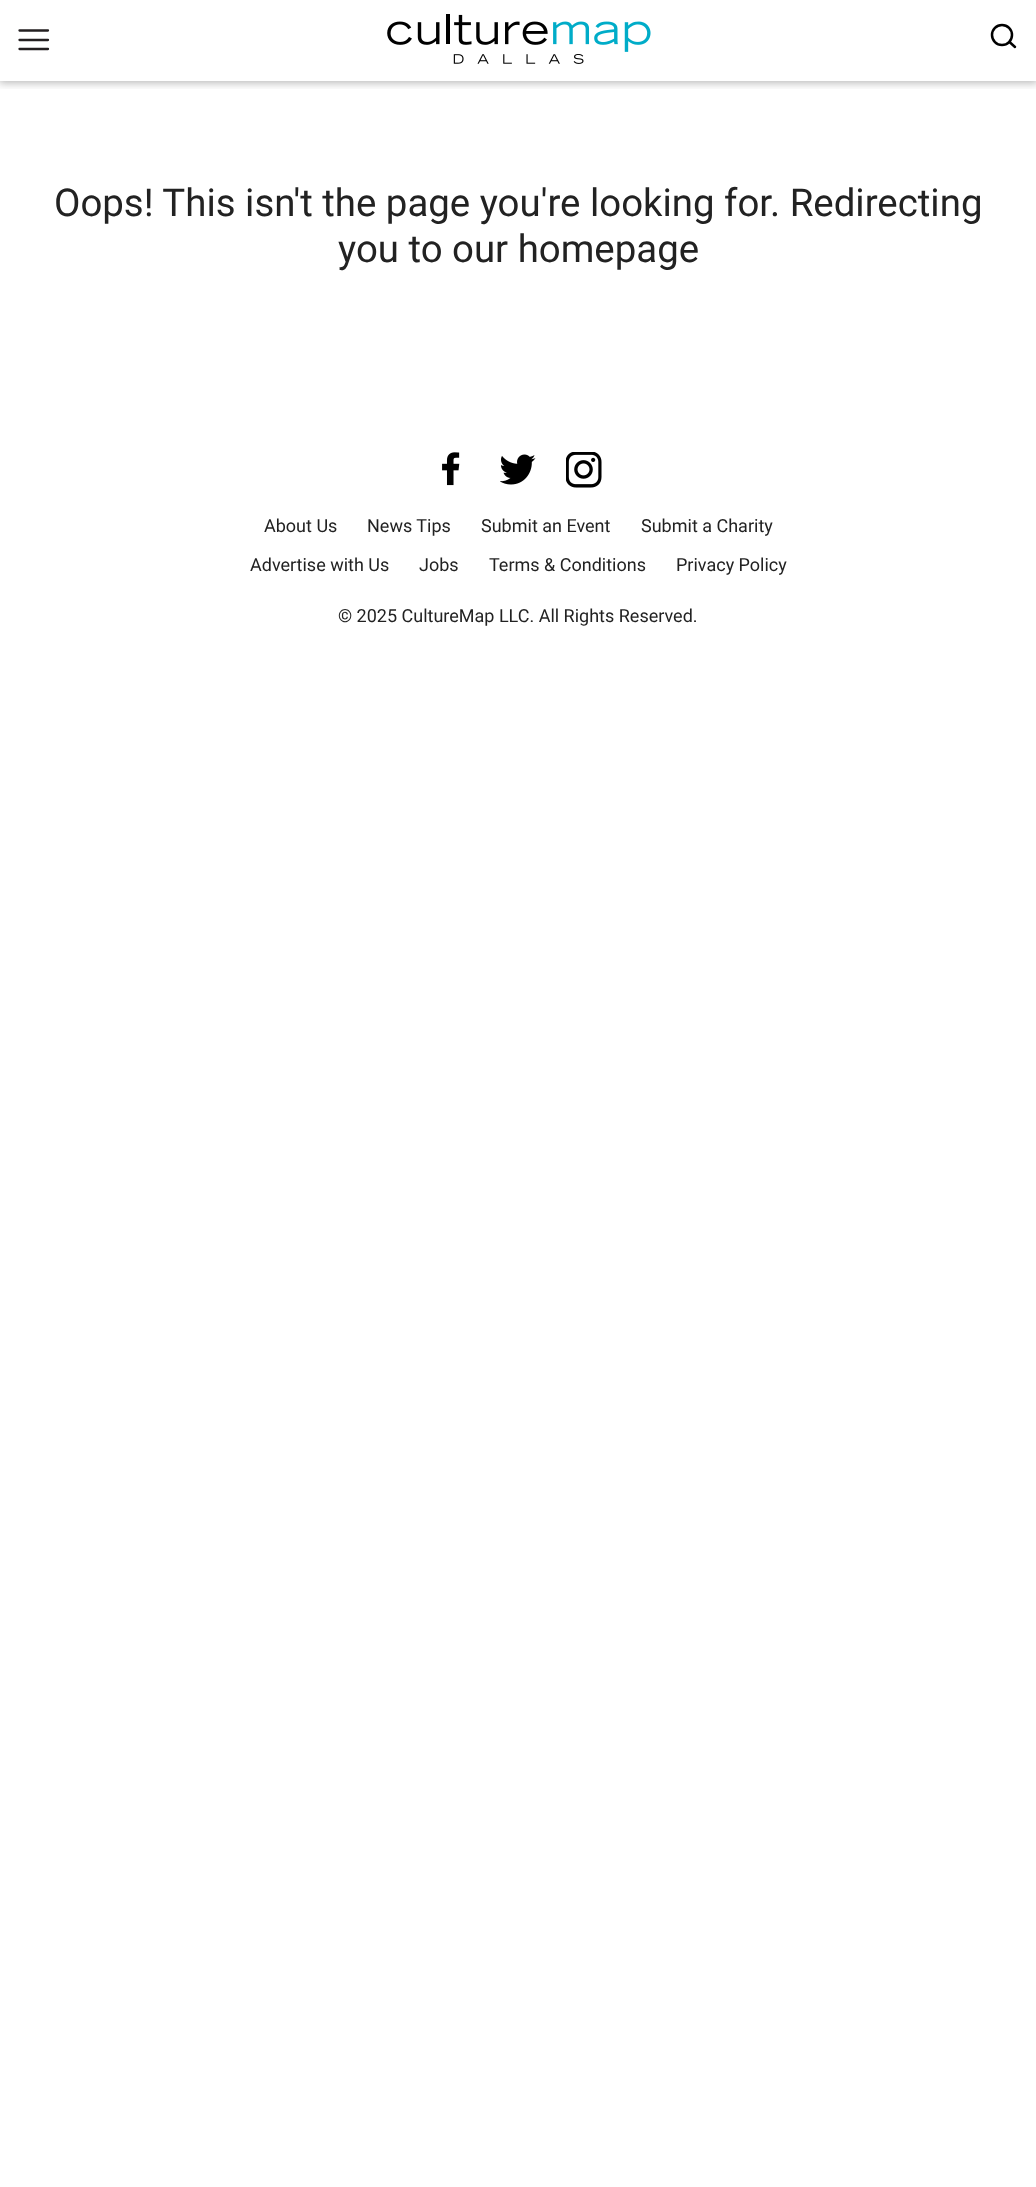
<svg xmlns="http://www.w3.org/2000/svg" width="1036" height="2187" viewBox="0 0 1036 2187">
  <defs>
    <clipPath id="clip1"><path d="M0 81h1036v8H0z"/></clipPath>
  </defs>
  <rect width="100%" height="100%" fill="#fff"/>
  <g clip-path="url(#clip1)">
    <path d="M-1 -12h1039v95H-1z" fill="#00000047" filter="blur(4px)"/>
  </g>
  <path d="M19.5 40H48M19.5 30.5H48M19.5 49H48" fill="none" stroke="#231f20" stroke-width="2.3" stroke-linecap="round" stroke-linejoin="round"/>
  <image x="387" y="14" width="264" height="50" href="img/1.png"/>
  <circle cx="1002" cy="35" r="10" fill="none" stroke="#000" stroke-width="2.5"/>
  <path d="M1015 47L1009.5 42" fill="none" stroke="#000" stroke-width="2.5" stroke-linecap="round" stroke-linejoin="round"/>
  <image x="442" y="452" width="18" height="34" href="img/2.png"/>
  <image x="500" y="454" width="36" height="31" href="img/3.png"/>
  <image x="566" y="452" width="36" height="36" href="img/4.png"/>
  <g font-family="Roboto" font-size="38.4" fill="#222">
    <text x="54" y="216">Oops! This isn't the page you're looking for. Redirecting</text>
    <text x="338" y="262">you to our homepage</text>
  </g>
  <g font-family="Roboto" font-size="18" fill="#222">
    <text x="264" y="532">About Us</text>
    <text x="367" y="532">News Tips</text>
    <text x="481" y="532">Submit an Event</text>
    <text x="641" y="532">Submit a Charity</text>
    <text x="250" y="571">Advertise with Us</text>
    <text x="419" y="571">Jobs</text>
    <text x="489" y="571">Terms &amp; Conditions</text>
    <text x="676" y="571">Privacy Policy</text>
    <text x="338" y="622">© 2025 CultureMap LLC. All Rights Reserved.</text>
  </g>
</svg>
